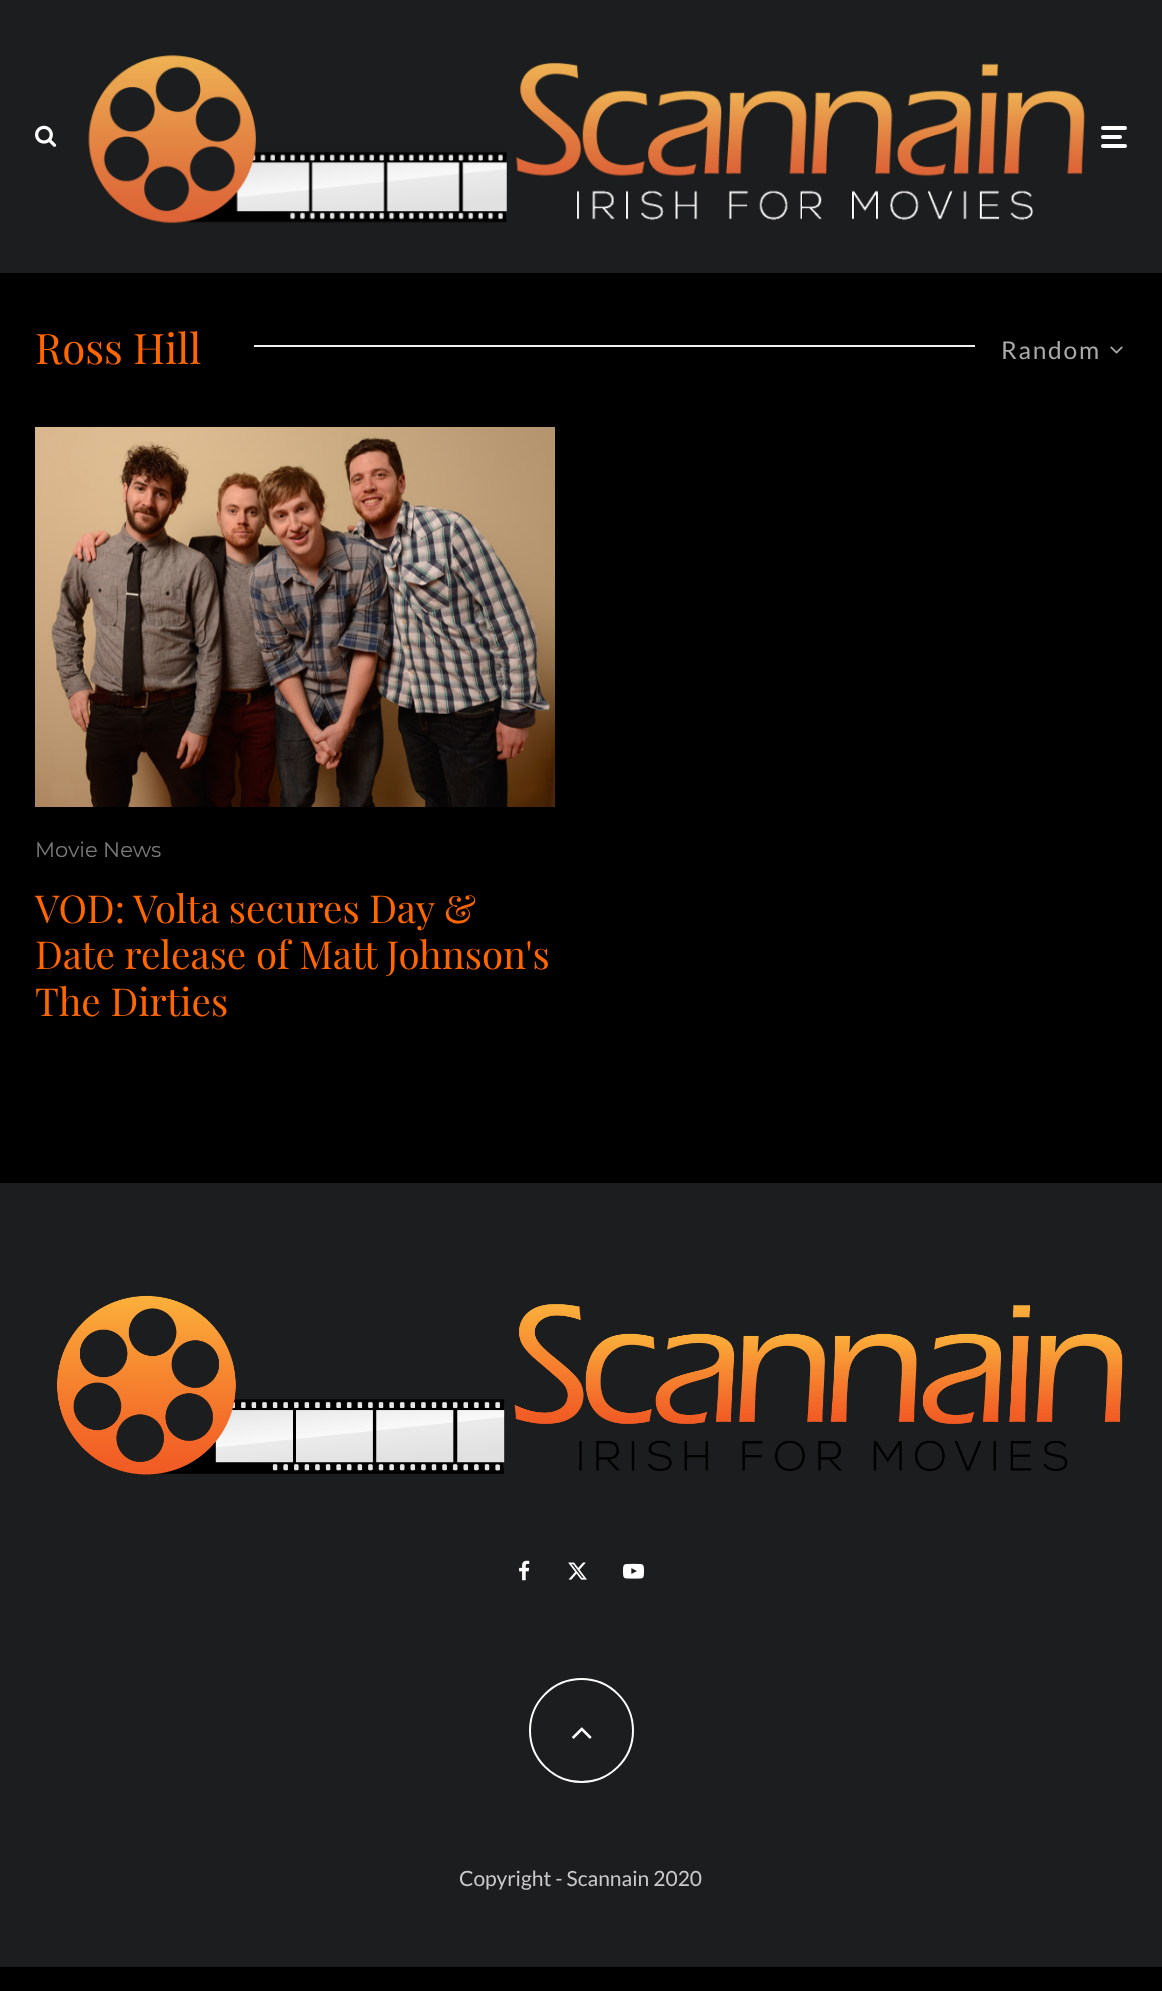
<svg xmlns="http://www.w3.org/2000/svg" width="1162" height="1991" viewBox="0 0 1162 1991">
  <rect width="100%" height="100%" fill="#000"/>
  <path d="M0 0h1162v273H0z" fill="#1c1d1e"/>
  <image x="35" y="125" width="22" height="22" href="img/1.png"/>
  <image x="88" y="55" width="997" height="169" href="img/2.png"/>
  <rect x="1101" y="135" width="21" height="4" rx="2" fill="#fff"/>
  <rect x="1101" y="126" width="26" height="4" rx="2" fill="#fff"/>
  <rect x="1101" y="144" width="26" height="4" rx="2" fill="#fff"/>
  <path d="M254 345h721v2H254z" fill="#eee"/>
  <image x="1110" y="346" width="13" height="8" href="img/3.png"/>
  <image x="35" y="427" width="520" height="380" href="img/4.png"/>
  <path d="M0 1183h1162v784H0z" fill="#1c1d1e"/>
  <image x="57" y="1295" width="1066" height="180" href="img/5.png"/>
  <image x="519" y="1560" width="11" height="21" href="img/6.png"/>
  <image x="568" y="1562" width="19" height="18" href="img/7.png"/>
  <image x="623" y="1563" width="21" height="16" href="img/8.png"/>
  <circle cx="581.5" cy="1730.5" r="51.5" fill="none" stroke="#fff" stroke-width="2"/>
  <image x="572" y="1727" width="20" height="12" href="img/9.png"/>
  <text x="35" y="364" font-family="Playfair Display" font-size="42" fill="#f60">Ross Hill</text>
  <text x="1001" y="359" font-family="Lato" font-size="24.5" letter-spacing="1.75" fill="#aaa">Random</text>
  <text x="35" y="857" font-family="Montserrat" font-size="21" fill="#7b7b7b">Movie News</text>
  <g font-family="Playfair Display" font-size="38.5" fill="#f60">
    <text x="35" y="923">VOD: Volta secures Day &amp;</text>
    <text x="35" y="969">Date release of Matt Johnson's</text>
    <text x="35" y="1016">The Dirties</text>
  </g>
  <text x="459" y="1886" font-family="Lato" font-size="21" fill="#c9c9c9">Copyright - Scannain 2020</text>
</svg>
